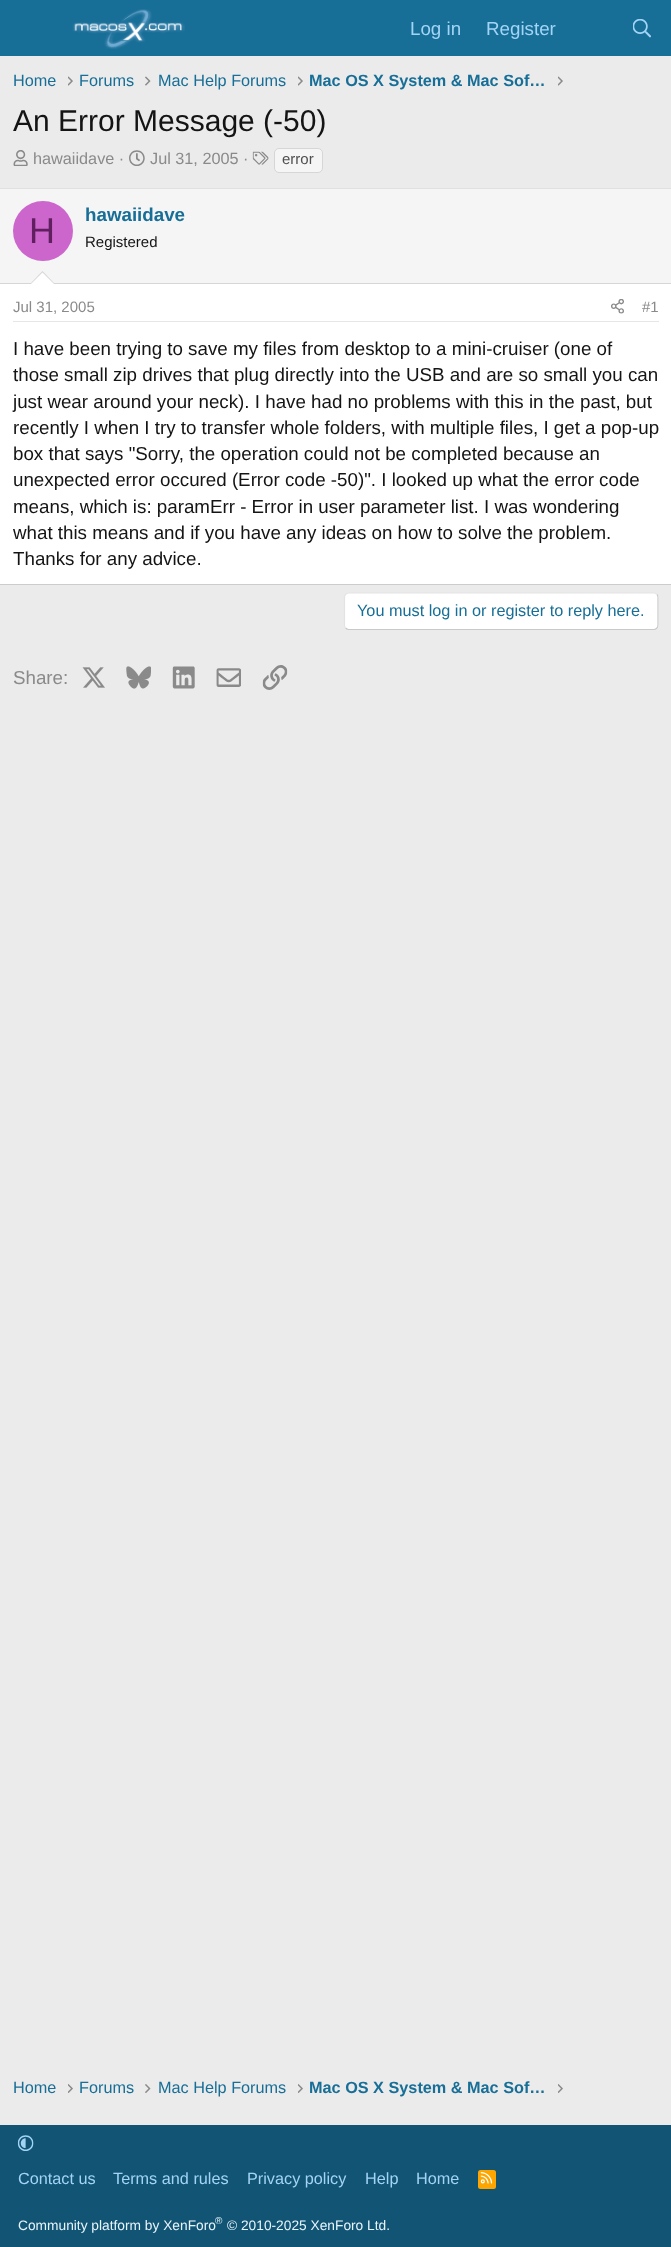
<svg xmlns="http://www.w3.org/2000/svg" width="671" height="2247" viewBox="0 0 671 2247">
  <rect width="100%" height="100%" fill="#ebebeb"/>
  <path d="M0 0h671v56H0z" fill="#176e97"/>
  <image x="72" y="9" width="113" height="40" href="img/1.png"/>
  <image x="633" y="19" width="18" height="19" href="img/2.png"/>
  <image x="68" y="76" width="5" height="10" href="img/3.png"/>
  <image x="145" y="76" width="6" height="10" href="img/4.png"/>
  <image x="298" y="76" width="5" height="10" href="img/3.png"/>
  <image x="558" y="76" width="5" height="10" href="img/3.png"/>
  <image x="13" y="150" width="15" height="16" href="img/5.png"/>
  <image x="129" y="150" width="16" height="16" href="img/6.png"/>
  <image x="252" y="151" width="17" height="14" href="img/7.png"/>
  <rect x="274.5" y="148.5" width="48" height="24" rx="4.5" fill="#f5f5f5" stroke="#d6d6d6"/>
  <path d="M0 284h671v300H0z" fill="#fff"/>
  <path d="M0 188h671v1H0z" fill="#e0e0e0"/>
  <path d="M0 584h671v1H0z" fill="#ccc"/>
  <path d="M0 189h671v94H0z" fill="#f5f5f5"/>
  <path d="M0 283h671v1H0z" fill="#d6d6d6"/>
  <circle cx="43" cy="231" r="30" fill="#c6c"/>
  <path d="M55 284H30L42.5 271Z" fill="#d6d6d6"/>
  <path d="M54 284H31L42.5 272.5Z" fill="#fff"/>
  <path d="M13 321h646v1H13z" fill="#e6e6e6"/>
  <image x="611" y="299" width="13" height="15" href="img/8.png"/>
  <rect x="344" y="593" width="315" height="37" rx="5" fill="#fff"/>
  <path d="M657 594.5C657.5 595 658 596.5 658 597.5V625C658 626 657.5 627.5 657 628C656 629 655 629.5 654 629.5H349C347.5 629.5 346.5 629 345.5 628" fill="none" stroke="#c9c9c9" stroke-width="1.2"/>
  <path d="M345.5 628C345 627.5 344.5 626 344.5 625V597.5C344.5 596.5 345 595 345.5 594.5C346.5 593.5 347.5 593 349 593H654C655 593 656 593.5 657 594.5" fill="none" stroke="#e3e3e3" stroke-width="1.2"/>
  <image x="82" y="667" width="23" height="21" href="img/9.png"/>
  <image x="126" y="666" width="25" height="23" href="img/10.png"/>
  <image x="172" y="666" width="23" height="23" href="img/11.png"/>
  <image x="216" y="668" width="25" height="19" href="img/12.png"/>
  <image x="262" y="665" width="26" height="25" href="img/13.png"/>
  <image x="68" y="2084" width="5" height="9" href="img/14.png"/>
  <image x="145" y="2084" width="6" height="9" href="img/15.png"/>
  <image x="298" y="2084" width="5" height="9" href="img/14.png"/>
  <image x="558" y="2084" width="5" height="9" href="img/14.png"/>
  <path d="M0 2125h671v122H0z" fill="#115473"/>
  <image x="17" y="2135" width="17" height="16" href="img/16.png"/>
  <rect x="478" y="2170" width="18" height="19" rx="2.5" fill="#ffa500"/>
  <image x="480" y="2172" width="13" height="12" href="img/17.png"/>
  <g font-family="Liberation Sans" font-size="18.75" fill="#a3d4f5">
    <text x="410" y="35">Log in</text>
    <text x="486" y="35">Register</text>
  </g>
  <g font-family="Liberation Sans" font-size="16.25" fill="#176e97">
    <text x="13" y="86">Home</text>
    <text x="79" y="86">Forums</text>
    <text x="158" y="86">Mac Help Forums</text>
  </g>
  <text x="309" y="86" font-family="Liberation Sans" font-size="16.25" font-weight="bold" fill="#176e97">Mac OS X System &amp; Mac Sof…</text>
  <text x="13" y="131" font-family="Liberation Sans" font-size="30" fill="#141414">An Error Message (-50)</text>
  <g font-family="Liberation Sans" font-size="16.25" fill="#8a8a8a">
    <text x="33" y="164">hawaiidave ·</text>
    <text x="150" y="164">Jul 31, 2005 ·</text>
  </g>
  <text x="282" y="164" font-family="Liberation Sans" font-size="15" fill="#4f4f4f">error</text>
  <text x="29" y="243" font-family="Liberation Sans" font-size="36" fill="#602060">H</text>
  <text x="85" y="221" font-family="Liberation Sans" font-size="18.75" font-weight="bold" fill="#176e97">hawaiidave</text>
  <text x="85" y="247" font-family="Liberation Sans" font-size="15" fill="#141414">Registered</text>
  <g font-family="Liberation Sans" font-size="15" fill="#8a8a8a">
    <text x="13" y="312">Jul 31, 2005</text>
    <text x="642" y="312">#1</text>
  </g>
  <g font-family="Liberation Sans" font-size="18.75" fill="#141414">
    <text x="13" y="355">I have been trying to save my files from desktop to a mini-cruiser (one of</text>
    <text x="13" y="381">those small zip drives that plug directly into the USB and are so small you can</text>
    <text x="13" y="408">just wear around your neck). I have had no problems with this in the past, but</text>
    <text x="13" y="434">recently I when I try to transfer whole folders, with multiple files, I get a pop-up</text>
    <text x="13" y="460">box that says "Sorry, the operation could not be completed because an</text>
    <text x="13" y="486">unexpected error occured (Error code -50)". I looked up what the error code</text>
    <text x="13" y="513">means, which is: paramErr - Error in user parameter list. I was wondering</text>
    <text x="13" y="539">what this means and if you have any ideas on how to solve the problem.</text>
    <text x="13" y="565">Thanks for any advice.</text>
  </g>
  <text x="357" y="616" font-family="Liberation Sans" font-size="16.25" fill="#176e97">You must log in or register to reply here.</text>
  <text x="13" y="684" font-family="Liberation Sans" font-size="18.75" fill="#8a8a8a">Share:</text>
  <g font-family="Liberation Sans" font-size="16.25" fill="#176e97">
    <text x="13" y="2093">Home</text>
    <text x="79" y="2093">Forums</text>
    <text x="158" y="2093">Mac Help Forums</text>
  </g>
  <text x="309" y="2093" font-family="Liberation Sans" font-size="16.25" font-weight="bold" fill="#176e97">Mac OS X System &amp; Mac Sof…</text>
  <g font-family="Liberation Sans" font-size="16.25" fill="#a3d4f5">
    <text x="18" y="2184">Contact us</text>
    <text x="113" y="2184">Terms and rules</text>
    <text x="247" y="2184">Privacy policy</text>
    <text x="365" y="2184">Help</text>
    <text x="416" y="2184">Home</text>
  </g>
  <text x="18" y="2230" font-family="Liberation Sans" font-size="13.75" fill="#e8f4fc">Community platform by XenForo</text>
  <text x="215" y="2224" font-family="Liberation Sans" font-size="10" fill="#e8f4fc">®</text>
  <text x="227" y="2230" font-family="Liberation Sans" font-size="13.75" fill="#e8f4fc">© 2010-2025 XenForo Ltd.</text>
</svg>
